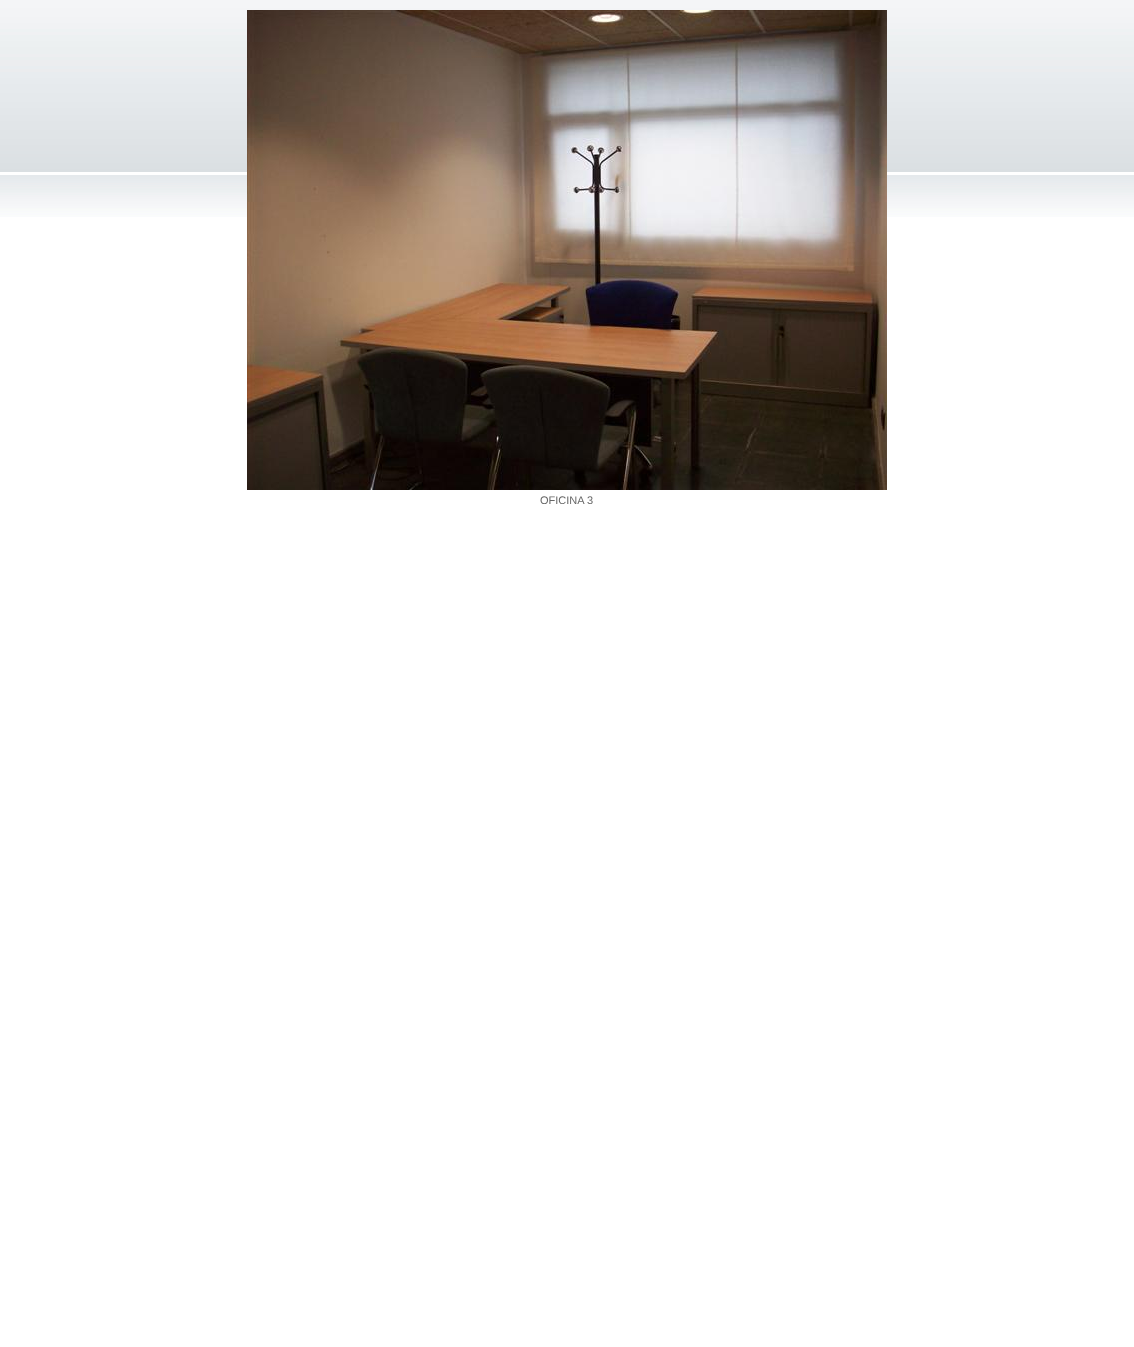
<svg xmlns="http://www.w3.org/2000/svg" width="1134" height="1347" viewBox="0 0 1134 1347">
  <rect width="100%" height="100%" fill="#fff"/>
  <image x="0" y="0" width="1134" height="217" href="img/1.png"/>
  <image x="247" y="10" width="640" height="480" href="img/2.png"/>
  <text x="540" y="504" font-family="Liberation Sans" font-size="11" fill="#666">OFICINA 3</text>
</svg>
